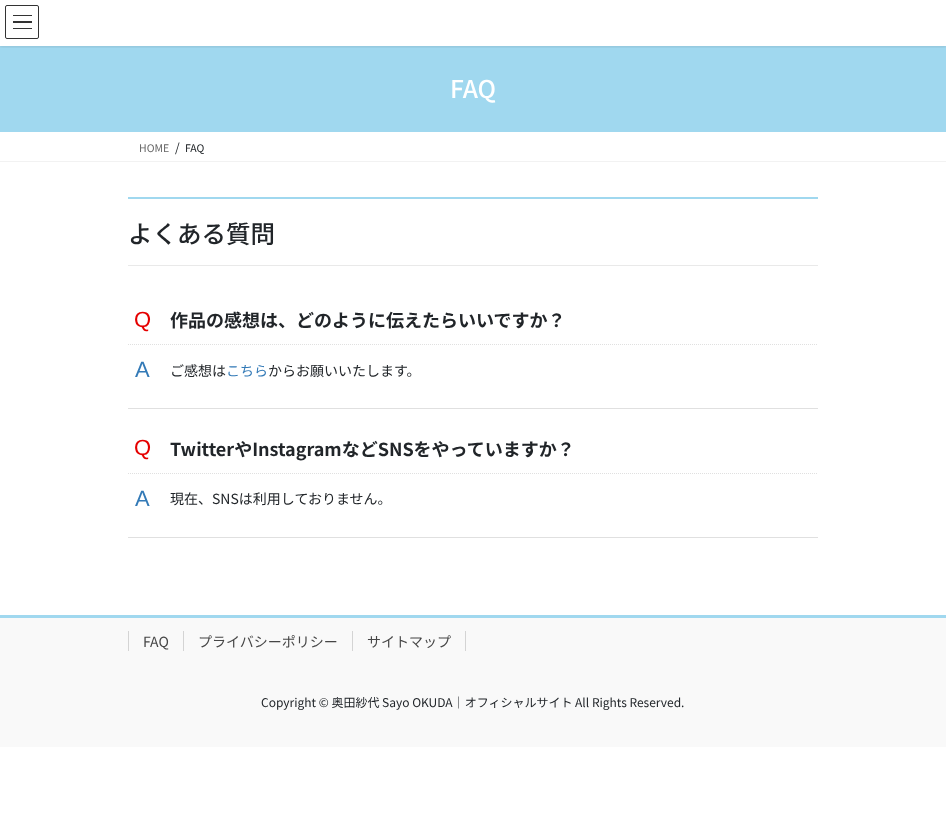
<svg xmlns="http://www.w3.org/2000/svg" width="946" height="821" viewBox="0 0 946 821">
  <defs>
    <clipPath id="clip1"><path d="M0 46h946v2H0z"/></clipPath>
  </defs>
  <rect width="100%" height="100%" fill="#fff"/>
  <path d="M0 46h946v86H0z" fill="#a0d8ef"/>
  <g clip-path="url(#clip1)">
    <path d="M0 1h946v46H0z" fill="#0000001a" filter="blur(1.5px)"/>
  </g>
  <path d="M13 15h19v1H13z" fill="#333"/>
  <path d="M13 21h19v2H13z" fill="#333"/>
  <path d="M13 28h19v1H13z" fill="#333"/>
  <rect x="5.5" y="5.5" width="33" height="33" rx="1.5" fill="none" stroke="#333"/>
  <path d="M0 161h946v1H0z" fill="#f2f2f2"/>
  <path d="M128 197h690v2H128z" fill="#a0d8ef"/>
  <path d="M128 265h690v1H128z" fill="#e9e9e9"/>
  <path d="M128 408h690v1H128z" fill="#e0e0e0"/>
  <path d="M128 344.5H818" fill="none" stroke="#e0e0e0" stroke-dasharray="1 1"/>
  <path d="M128 537h690v1H128z" fill="#e0e0e0"/>
  <path d="M128 473.5H818" fill="none" stroke="#e0e0e0" stroke-dasharray="1 1"/>
  <path d="M0 618h946v129H0z" fill="#f9f9f9"/>
  <path d="M0 615h946v3H0z" fill="#a0d8ef"/>
  <path d="M128 631h1v20H128z" fill="#d4d4d4"/>
  <path d="M183 631h1v20H183z" fill="#d4d4d4"/>
  <path d="M465 631h1v20H465z" fill="#d4d4d4"/>
  <path d="M352 631h1v20H352z" fill="#d4d4d4"/>
  <text x="450" y="98" font-family="Noto Sans JP" font-size="24.5" font-weight="500" fill="#fff">FAQ</text>
  <text x="139" y="152" font-family="Noto Sans JP" font-size="10.5" fill="#666">HOME</text>
  <text x="175" y="152" font-family="Noto Sans JP" font-size="12" fill="#212529">/</text>
  <text x="185" y="152" font-family="Noto Sans JP" font-size="10.5" fill="#212529">FAQ</text>
  <text x="128" y="243" font-family="Noto Sans JP" font-size="24.5" font-weight="500" fill="#212529">よくある質問</text>
  <text x="134" y="327" font-family="Liberation Sans" font-size="22" fill="#e50000">Q</text>
  <text x="170" y="327" font-family="Noto Sans JP" font-size="18" font-weight="bold" fill="#212529">作品の感想は、どのように伝えたらいいですか？</text>
  <text x="135" y="377" font-family="Liberation Sans" font-size="22" fill="#337ab7">A</text>
  <text x="170" y="376" font-family="Noto Sans JP" font-size="14" fill="#212529">ご感想は</text>
  <text x="226" y="376" font-family="Noto Sans JP" font-size="14" fill="#337ab7">こちら</text>
  <text x="268" y="376" font-family="Noto Sans JP" font-size="14" fill="#212529">からお願いいたします。</text>
  <text x="134" y="455" font-family="Liberation Sans" font-size="22" fill="#e50000">Q</text>
  <text x="170" y="456" font-family="Noto Sans JP" font-size="18" font-weight="bold" fill="#212529">TwitterやInstagramなどSNSをやっていますか？</text>
  <text x="135" y="506" font-family="Liberation Sans" font-size="22" fill="#337ab7">A</text>
  <text x="170" y="504" font-family="Noto Sans JP" font-size="14" fill="#212529">現在、SNSは利用しておりません。</text>
  <g font-family="Noto Sans JP" font-size="14" fill="#464646">
    <text x="143" y="647">FAQ</text>
    <text x="198" y="647">プライバシーポリシー</text>
    <text x="367" y="647">サイトマップ</text>
  </g>
  <text x="261" y="707" font-family="Noto Sans JP" font-size="12" fill="#212529">Copyright © 奥田紗代 Sayo OKUDA｜オフィシャルサイト All Rights Reserved.</text>
</svg>
